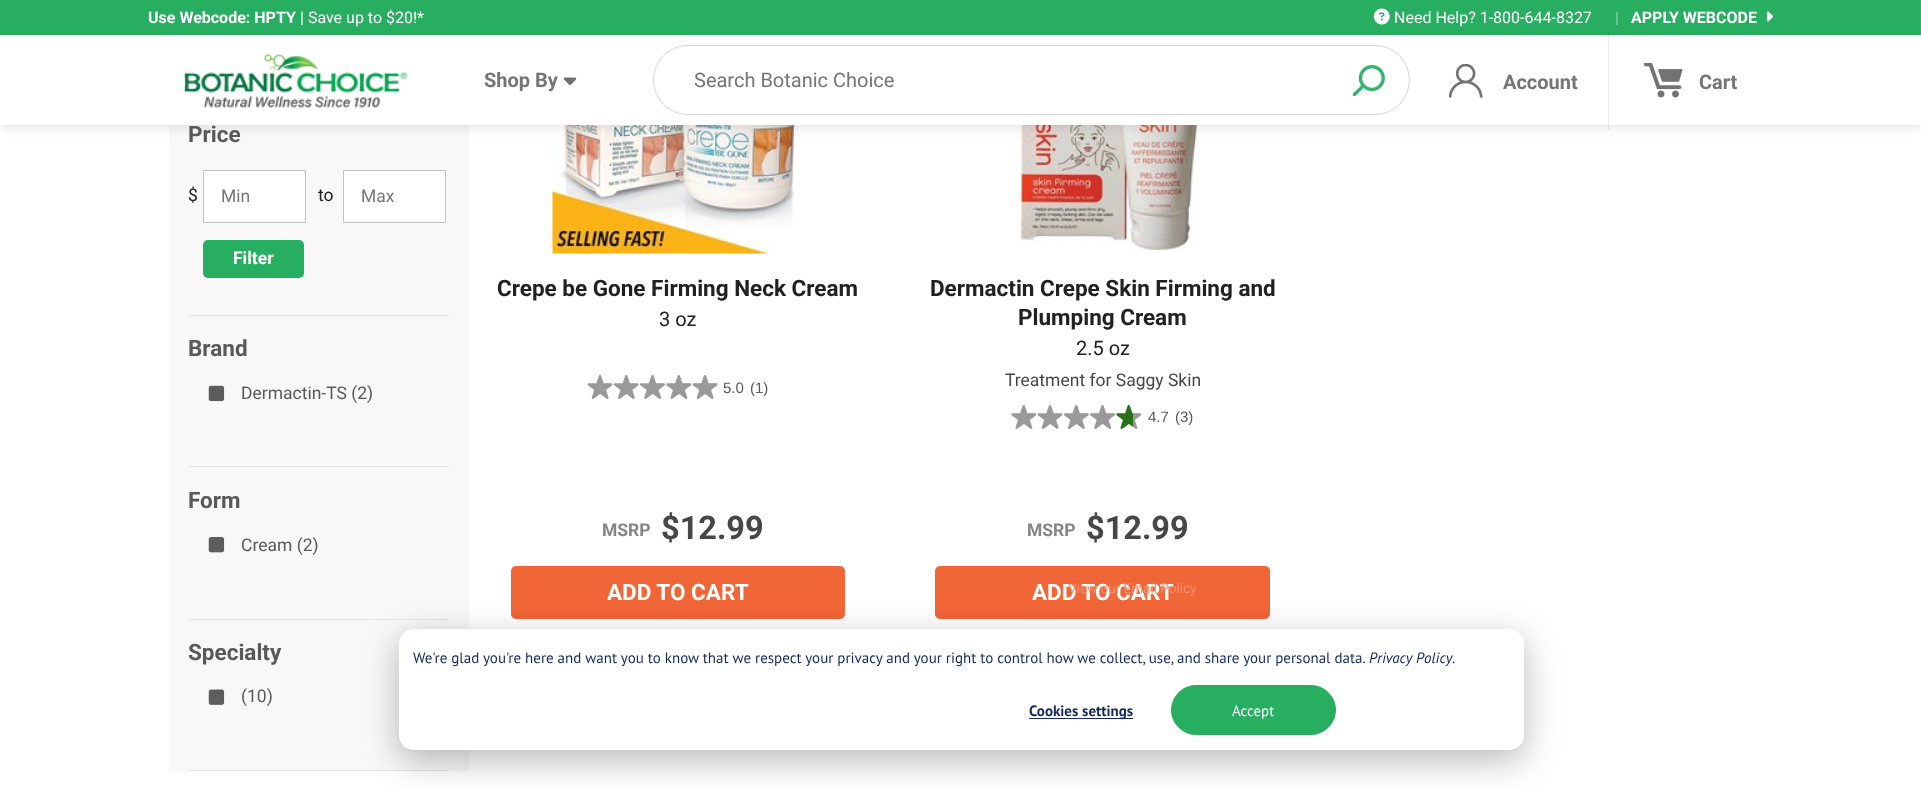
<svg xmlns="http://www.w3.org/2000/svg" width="1921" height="789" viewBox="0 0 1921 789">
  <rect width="100%" height="100%" fill="#fff"/>
  <path d="M0 0h1921v35H0z" fill="#27ae60"/>
  <image x="1373" y="8" width="17" height="17" href="img/1.png"/>
  <image x="1767" y="11" width="6" height="11" href="img/2.png"/>
  <path d="M169 125h300v646H169z" fill="#f8f8f8"/>
  <image x="552" y="125" width="247" height="129" href="img/11.png"/>
  <image x="1017" y="125" width="192" height="127" href="img/16.png"/>
  <path d="M0 39h1921v90H0z" fill="#584c4c1f" filter="blur(4px)"/>
  <path d="M0 35h1921v90H0z" fill="#fff"/>
  <image x="183" y="53" width="225" height="55" href="img/3.png"/>
  <image x="563" y="77" width="14" height="8" href="img/4.png"/>
  <rect x="653.5" y="45.5" width="756" height="69" rx="34.5" fill="none" stroke="#d6d6d6"/>
  <image x="1353" y="65" width="32" height="31" href="img/5.png"/>
  <path d="M1608 30h1v100H1608z" fill="#00000014"/>
  <image x="1449" y="64" width="34" height="34" href="img/6.png"/>
  <image x="1644" y="63" width="39" height="35" href="img/7.png"/>
  <path d="M189 315h260v1H189z" fill="#e4e4e4"/>
  <path d="M203.5 170.5h102v52H203.5z" fill="#fff" stroke="#c2c2c2"/>
  <path d="M343.5 170.5h102v52H343.5z" fill="#fff" stroke="#c2c2c2"/>
  <rect x="203" y="240" width="101" height="38" rx="5" fill="#27ae60"/>
  <path d="M189 466h260v1H189z" fill="#e4e4e4"/>
  <image x="208" y="385" width="17" height="17" href="img/8.png"/>
  <path d="M189 619h260v1H189z" fill="#e4e4e4"/>
  <image x="208" y="537" width="17" height="16" href="img/9.png"/>
  <path d="M189 770h260v1H189z" fill="#e4e4e4"/>
  <image x="208" y="689" width="17" height="16" href="img/10.png"/>
  <image x="587" y="375" width="26" height="24" href="img/12.png"/>
  <image x="613" y="375" width="26" height="24" href="img/13.png"/>
  <image x="640" y="375" width="25" height="24" href="img/14.png"/>
  <image x="666" y="375" width="26" height="24" href="img/15.png"/>
  <image x="692" y="375" width="26" height="24" href="img/12.png"/>
  <rect x="511" y="566" width="334" height="53" rx="5" fill="#f16637"/>
  <image x="1011" y="405" width="26" height="24" href="img/15.png"/>
  <image x="1037" y="405" width="26" height="24" href="img/12.png"/>
  <image x="1063" y="405" width="26" height="24" href="img/13.png"/>
  <image x="1090" y="405" width="25" height="24" href="img/14.png"/>
  <image x="1116" y="405" width="26" height="24" href="img/17.png"/>
  <rect x="935" y="566" width="335" height="53" rx="5" fill="#f16637"/>
  <rect x="399" y="639" width="1125" height="121" rx="15" fill="#00000047" filter="blur(17.5px)"/>
  <rect x="399" y="629" width="1125" height="121" rx="15" fill="#fff"/>
  <path d="M1029 718h104v1H1029z" fill="#15295a"/>
  <rect x="1171.5" y="685.5" width="164" height="49" rx="24.5" fill="#27ae60" stroke="#27ae60"/>
  <text x="148" y="23" font-family="Roboto" font-size="16" font-weight="bold" fill="#fff">Use Webcode: HPTY</text>
  <g font-family="Roboto" font-size="16" fill="#fff">
    <text x="300" y="23">| Save up to $20!*</text>
    <text x="1394" y="23">Need Help? 1-800-644-8327</text>
  </g>
  <text x="1615" y="23" font-family="Roboto" font-size="16" fill="#8fd5ac">|</text>
  <text x="1631" y="23" font-family="Roboto" font-size="16" font-weight="bold" fill="#fff">APPLY WEBCODE</text>
  <text x="484" y="87" font-family="Roboto" font-size="20" font-weight="bold" fill="#757575">Shop By</text>
  <text x="694" y="87" font-family="Roboto" font-size="20" fill="#757575">Search Botanic Choice</text>
  <g font-family="Roboto" font-size="20" font-weight="bold" fill="#757575">
    <text x="1503" y="89">Account</text>
    <text x="1699" y="89">Cart</text>
  </g>
  <text x="188" y="142" font-family="Roboto" font-size="22.5" font-weight="bold" fill="#595959">Price</text>
  <text x="188" y="201" font-family="Roboto" font-size="17.5" fill="#212121">$</text>
  <text x="221" y="202" font-family="Roboto" font-size="17.5" fill="#757575">Min</text>
  <text x="318" y="201" font-family="Roboto" font-size="17.5" fill="#212121">to</text>
  <text x="361" y="202" font-family="Roboto" font-size="17.5" fill="#757575">Max</text>
  <text x="233" y="264" font-family="Roboto" font-size="17.5" font-weight="bold" fill="#fff">Filter</text>
  <text x="188" y="356" font-family="Roboto" font-size="22.5" font-weight="bold" fill="#595959">Brand</text>
  <text x="241" y="399" font-family="Roboto" font-size="17.5" fill="#595959">Dermactin-TS (2)</text>
  <text x="188" y="508" font-family="Roboto" font-size="22.5" font-weight="bold" fill="#595959">Form</text>
  <text x="241" y="551" font-family="Roboto" font-size="17.5" fill="#595959">Cream (2)</text>
  <text x="188" y="660" font-family="Roboto" font-size="22.5" font-weight="bold" fill="#595959">Specialty</text>
  <text x="241" y="702" font-family="Roboto" font-size="17.5" fill="#595959">(10)</text>
  <text x="497" y="296" font-family="Roboto" font-size="22.5" font-weight="bold" fill="#212121">Crepe be Gone Firming Neck Cream</text>
  <text x="659" y="326" font-family="Roboto" font-size="20" fill="#212121">3 oz</text>
  <g font-family="Liberation Sans" font-size="15" fill="#595959">
    <text x="723" y="393">5.0</text>
    <text x="750" y="393">(1)</text>
  </g>
  <text x="602" y="536" font-family="Roboto" font-size="17.5" font-weight="bold" fill="#858585">MSRP</text>
  <text x="661" y="539" font-family="Roboto" font-size="32.5" font-weight="bold" fill="#474747">$12.99</text>
  <text x="607" y="600" font-family="Roboto" font-size="22.5" font-weight="bold" fill="#fff">ADD TO CART</text>
  <g font-family="Roboto" font-size="22.5" font-weight="bold" fill="#212121">
    <text x="930" y="296">Dermactin Crepe Skin Firming and</text>
    <text x="1018" y="325">Plumping Cream</text>
  </g>
  <text x="1076" y="355" font-family="Roboto" font-size="20" fill="#212121">2.5 oz</text>
  <text x="1005" y="386" font-family="Roboto" font-size="17.5" fill="#474747">Treatment for Saggy Skin</text>
  <g font-family="Liberation Sans" font-size="15" fill="#595959">
    <text x="1148" y="422">4.7</text>
    <text x="1175" y="422">(3)</text>
  </g>
  <text x="1027" y="536" font-family="Roboto" font-size="17.5" font-weight="bold" fill="#858585">MSRP</text>
  <text x="1086" y="539" font-family="Roboto" font-size="32.5" font-weight="bold" fill="#474747">$12.99</text>
  <text x="1032" y="600" font-family="Roboto" font-size="22.5" font-weight="bold" fill="#fff">ADD TO CART</text>
  <text x="1068" y="593" font-family="Roboto" font-size="13.5" fill="#f5916f">View our Email Policy</text>
  <text x="413" y="663" font-family="PT Sans" font-size="15" fill="#15295a">We're glad you're here and want you to know that we respect your privacy and your right to control how we collect, use, and share your personal data.</text>
  <text x="1369" y="663" font-family="PT Sans" font-size="15" font-style="italic" fill="#15295a">Privacy Policy</text>
  <text x="1452" y="663" font-family="PT Sans" font-size="15" fill="#15295a">.</text>
  <text x="1029" y="716" font-family="PT Sans" font-size="15" font-weight="bold" fill="#15295a">Cookies settings</text>
  <text x="1232" y="716" font-family="PT Sans" font-size="15" fill="#fff">Accept</text>
</svg>
